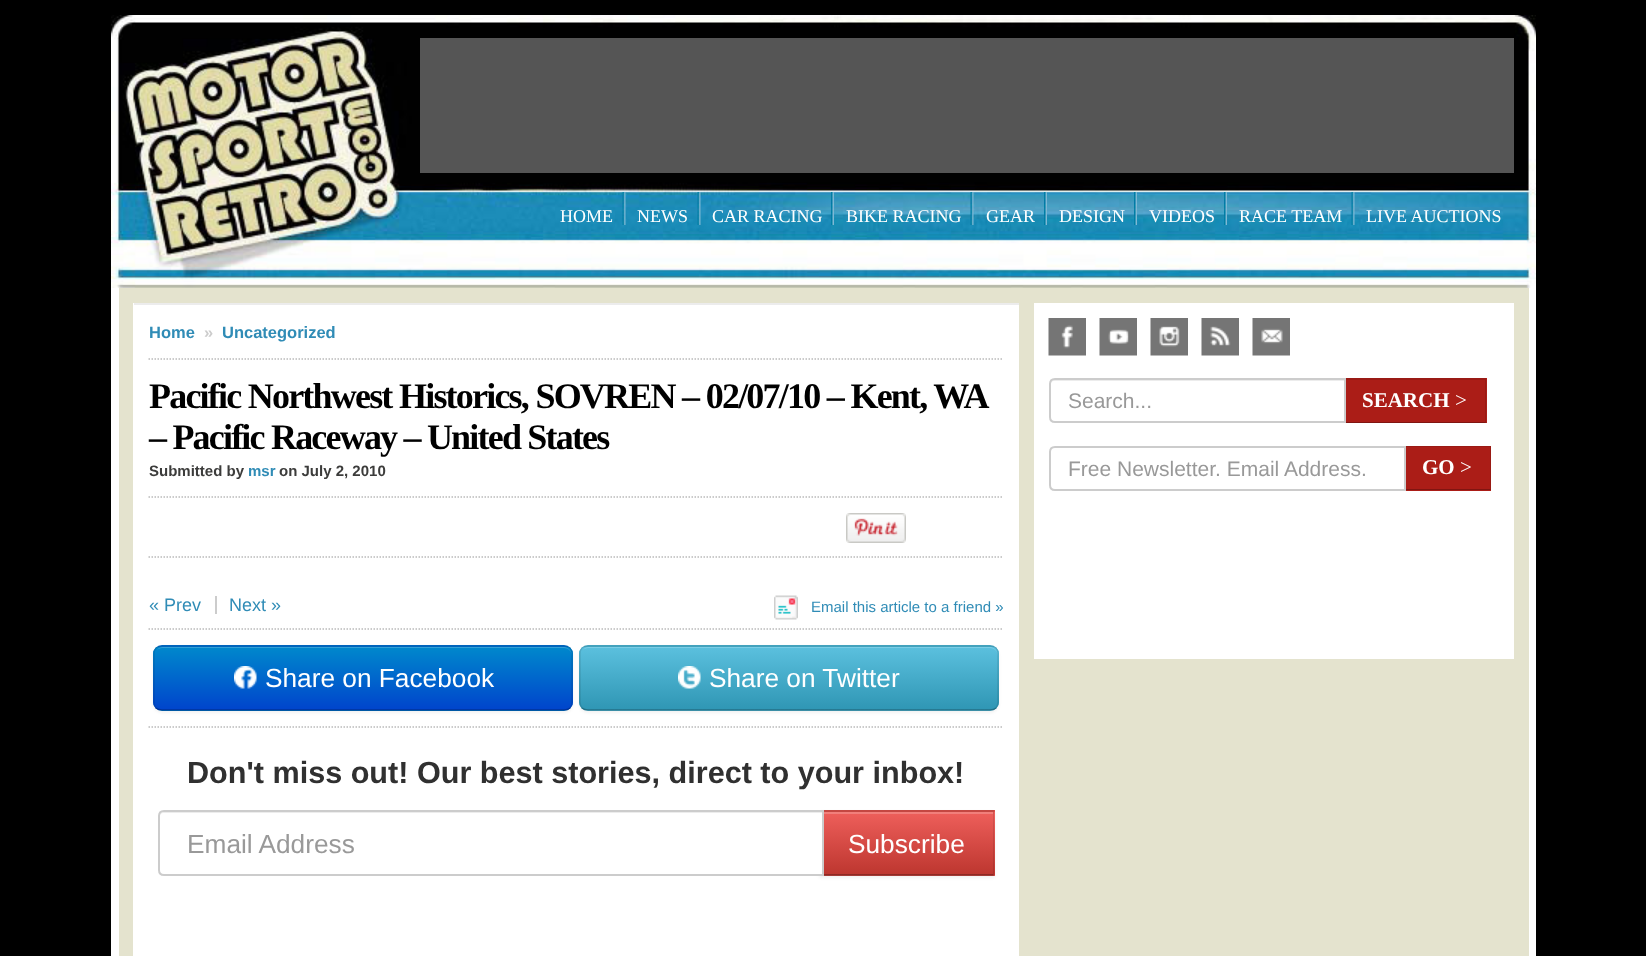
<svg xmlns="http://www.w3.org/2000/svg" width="1646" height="956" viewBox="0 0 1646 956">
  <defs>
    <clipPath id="clip1"><rect x="153" y="645" width="420" height="66" rx="9"/></clipPath>
    <linearGradient id="g1" gradientUnits="userSpaceOnUse" x1="363" y1="647" x2="363" y2="710"><stop offset="0" stop-color="#08c"/><stop offset="1" stop-color="#04c"/></linearGradient>
    <clipPath id="clip2"><rect x="579" y="645" width="420" height="66" rx="9"/></clipPath>
    <linearGradient id="g2" gradientUnits="userSpaceOnUse" x1="789" y1="647" x2="789" y2="710"><stop offset="0" stop-color="#5bc0de"/><stop offset="1" stop-color="#2f96b4"/></linearGradient>
    <linearGradient id="g3" gradientUnits="userSpaceOnUse" x1="907" y1="812" x2="907" y2="875"><stop offset="0" stop-color="#ee5f5b"/><stop offset="1" stop-color="#bd362f"/></linearGradient>
  </defs>
  <rect width="100%" height="100%" fill="#000"/>
  <image x="111" y="15" width="1425" height="273" href="img/1.png"/>
  <path d="M420 38h1094v135H420z" fill="#555"/>
  <image x="622" y="192" width="4" height="33" href="img/2.png"/>
  <image x="697" y="192" width="4" height="33" href="img/3.png"/>
  <image x="831" y="192" width="3" height="33" href="img/4.png"/>
  <image x="970" y="192" width="4" height="33" href="img/5.png"/>
  <image x="1044" y="192" width="3" height="33" href="img/6.png"/>
  <image x="1134" y="192" width="3" height="33" href="img/6.png"/>
  <image x="1224" y="192" width="3" height="33" href="img/6.png"/>
  <image x="1351" y="192" width="4" height="33" href="img/7.png"/>
  <path d="M119 288h1410v668H119z" fill="#e4e3ce"/>
  <path d="M1529 288h7v668H1529z" fill="#fff"/>
  <path d="M111 288h8v668H111z" fill="#fff"/>
  <path d="M133 303h886v653H133z" fill="#fff"/>
  <path d="M134 303h885v2H134z" fill="#ececec"/>
  <path d="M148.5 359H1003.5" fill="none" stroke="#bbb" stroke-width="1.5" stroke-dasharray="1.5 1.5"/>
  <path d="M148.5 497H1003.5" fill="none" stroke="#bbb" stroke-width="1.5" stroke-dasharray="1.5 1.5"/>
  <path d="M148.5 557H1003.5" fill="none" stroke="#bbb" stroke-width="1.5" stroke-dasharray="1.5 1.5"/>
  <image x="846" y="513" width="60" height="30" href="img/8.png"/>
  <path d="M148.5 629H1003.5" fill="none" stroke="#bbb" stroke-width="1.5" stroke-dasharray="1.5 1.5"/>
  <path d="M215 596h2v18H215z" fill="#ccc"/>
  <image x="774" y="595" width="24" height="25" href="img/9.png"/>
  <path d="M148.5 727H1003.5" fill="none" stroke="#bbb" stroke-width="1.5" stroke-dasharray="1.5 1.5"/>
  <rect x="153" y="647" width="420" height="66" rx="9" fill="#0000000d" filter="blur(1.5px)"/>
  <rect x="153" y="645" width="420" height="66" rx="9" fill="#006dcc"/>
  <g clip-path="url(#clip1)">
    <path d="M153 647h420v63H153z" fill="url(#g1)"/>
  </g>
  <path d="M162 648H564C568 648 572 651 572 656V655C572 651 568 647 564 647H163C161 647 158 648 157 650C158 649 160 648 162 648Z" fill="#339fd6"/>
  <path d="M570 708C568.5 709.5 566 710 564 710H162C160 710 157.5 709.5 156 708" fill="none" stroke="#00000040" stroke-width="1.5"/>
  <path d="M156 708C154.5 706.5 154 704 154 702V654C154 652 154.5 649.5 156 648C157.5 646.5 160 646 162 646H564C566 646 568.5 646.5 570 648C571.5 649.5 572 652 572 654V702C572 704 571.5 706.5 570 708" fill="none" stroke="#0000001a" stroke-width="1.5"/>
  <image x="234" y="666" width="23" height="23" href="img/10.png"/>
  <rect x="579" y="647" width="420" height="66" rx="9" fill="#0000000d" filter="blur(1.5px)"/>
  <rect x="579" y="645" width="420" height="66" rx="9" fill="#49afcd"/>
  <g clip-path="url(#clip2)">
    <path d="M579 647h420v63H579z" fill="url(#g2)"/>
  </g>
  <path d="M588 648H990C994 648 998 651 998 656V655C998 651 994 647 990 647H589C587 647 584 648 583 650C584 649 586 648 588 648Z" fill="#7ccde5"/>
  <path d="M996 708C994.5 709.5 992 710 990 710H588C586 710 583.5 709.5 582 708" fill="none" stroke="#00000040" stroke-width="1.5"/>
  <path d="M582 708C580.5 706.5 580 704 580 702V654C580 652 580.5 649.5 582 648C583.5 646.5 586 646 588 646H990C992 646 994.5 646.5 996 648C997.5 649.5 998 652 998 654V702C998 704 997.5 706.5 996 708" fill="none" stroke="#0000001a" stroke-width="1.5"/>
  <image x="678" y="666" width="23" height="23" href="img/11.png"/>
  <path d="M819 812h176v66H819z" fill="#0000000d" filter="blur(1.5px)"/>
  <path d="M824 810h171v66H824z" fill="#da4f49"/>
  <path d="M824 812h171v63H824z" fill="url(#g3)"/>
  <path d="M821 812h172v2H821z" fill="#f17f7b"/>
  <path d="M819 810H994L993 812H820Z" fill="#c44742"/>
  <path d="M994 810V876L993 874V812Z" fill="#0000001a"/>
  <path d="M994 876H819L820 874H993Z" fill="#00000040"/>
  <path d="M164 810H824V876H164C160.5 876 158 873.5 158 870V816C158 812.5 160.5 810 164 810Z" fill="#fff"/>
  <path d="M164 813H822V812H164C161 812 159 815 159 818C159 815 161 813 164 813Z" fill="#ececec"/>
  <path d="M164 811H823V875H164C161 875 159 873 159 870V816C159 813 161 811 164 811Z" fill="none" stroke="#ccc" stroke-width="2"/>
  <path d="M1034 303h480v356H1034z" fill="#fff"/>
  <image x="1048" y="318" width="38" height="38" href="img/12.png"/>
  <image x="1099" y="318" width="38" height="38" href="img/13.png"/>
  <image x="1150" y="318" width="38" height="38" href="img/14.png"/>
  <image x="1201" y="318" width="38" height="38" href="img/15.png"/>
  <image x="1252" y="318" width="38" height="38" href="img/16.png"/>
  <path d="M1346 378h141v45H1346z" fill="#ab1d17"/>
  <path d="M1342 378H1486L1485 380H1344Z" fill="#9a1a15"/>
  <path d="M1486 378V423L1485 422V380Z" fill="#0000001a"/>
  <path d="M1486 423H1342L1344 422H1485Z" fill="#00000040"/>
  <path d="M1055 378H1346V423H1055C1051.5 423 1049 420.5 1049 417V384C1049 380.5 1051.5 378 1055 378Z" fill="#fff"/>
  <path d="M1054 381H1344V380H1055C1052 380 1050 382 1050 385V386C1050 383 1052 381 1054 381Z" fill="#ececec"/>
  <path d="M1055 379H1345V422H1055C1052 422 1050 420 1050 417V384C1050 381 1052 379 1055 379Z" fill="none" stroke="#ccc" stroke-width="2"/>
  <path d="M1406 446h85v45H1406z" fill="#ab1d17"/>
  <path d="M1402 446H1491L1490 447H1404Z" fill="#9a1a15"/>
  <path d="M1491 446V490L1490 489V447Z" fill="#0000001a"/>
  <path d="M1491 490H1402L1404 489H1490Z" fill="#00000040"/>
  <path d="M1055 447H1405V490H1055C1052 490 1050 488 1050 485V452C1050 449 1052 447 1055 447Z" fill="#fff" stroke="#ccc" stroke-width="2"/>
  <g font-family="Liberation Serif" font-size="18" fill="#fff">
    <text x="560" y="222">HOME</text>
    <text x="637" y="222">NEWS</text>
    <text x="712" y="222">CAR RACING</text>
    <text x="846" y="222">BIKE RACING</text>
    <text x="986" y="222">GEAR</text>
    <text x="1059" y="222">DESIGN</text>
    <text x="1149" y="222">VIDEOS</text>
    <text x="1239" y="222">RACE TEAM</text>
    <text x="1366" y="222">LIVE AUCTIONS</text>
  </g>
  <text x="149" y="338" font-family="Liberation Sans" font-size="16.5" font-weight="bold" fill="#308cb6">Home</text>
  <text x="204" y="338" font-family="Liberation Sans" font-size="16.5" font-weight="bold" fill="#ccc">»</text>
  <text x="222" y="338" font-family="Liberation Sans" font-size="16.5" font-weight="bold" fill="#308cb6">Uncategorized</text>
  <g font-family="Liberation Serif" font-size="36" font-weight="bold" letter-spacing="-1.8" fill="#000">
    <text x="149" y="408" word-spacing="0.25">Pacific Northwest Historics, SOVREN – 02/07/10 – Kent, WA</text>
    <text x="149" y="449">– Pacific Raceway – United States</text>
  </g>
  <text x="149" y="476" font-family="Liberation Sans" font-size="15" font-weight="bold" fill="#3c3c3b">Submitted by</text>
  <text x="248" y="476" font-family="Liberation Sans" font-size="15" font-weight="bold" fill="#308cb6">msr</text>
  <text x="279" y="476" font-family="Liberation Sans" font-size="15" font-weight="bold" fill="#3c3c3b">on July 2, 2010</text>
  <g font-family="Liberation Sans" font-size="18" fill="#308cb6">
    <text x="149" y="611">« Prev</text>
    <text x="229" y="611">Next »</text>
  </g>
  <text x="811" y="612" font-family="Liberation Sans" font-size="15" fill="#308cb6">Email this article to a friend »</text>
  <g font-family="Liberation Sans" font-size="26.25" fill="#fff">
    <text x="265" y="687">Share on Facebook</text>
    <text x="709" y="687">Share on Twitter</text>
  </g>
  <text x="187" y="783" font-family="Liberation Sans" font-size="30.6" font-weight="bold" fill="#303030">Don't miss out! Our best stories, direct to your inbox!</text>
  <text x="187" y="853" font-family="Liberation Sans" font-size="26.25" fill="#999">Email Address</text>
  <text x="848" y="853" font-family="Liberation Sans" font-size="26.25" fill="#fff">Subscribe</text>
  <text x="1068" y="408" font-family="Liberation Sans" font-size="21" fill="#999">Search...</text>
  <text x="1362" y="407" font-family="Liberation Serif" font-size="21" font-weight="bold" fill="#fff">SEARCH</text>
  <text x="1455" y="407" font-family="Liberation Serif" font-size="21" fill="#fff">&gt;</text>
  <text x="1068" y="476" font-family="Liberation Sans" font-size="21" fill="#999">Free Newsletter. Email Address.</text>
  <text x="1422" y="474" font-family="Liberation Serif" font-size="21" font-weight="bold" fill="#fff">GO</text>
  <text x="1460" y="474" font-family="Liberation Serif" font-size="21" fill="#fff">&gt;</text>
</svg>
